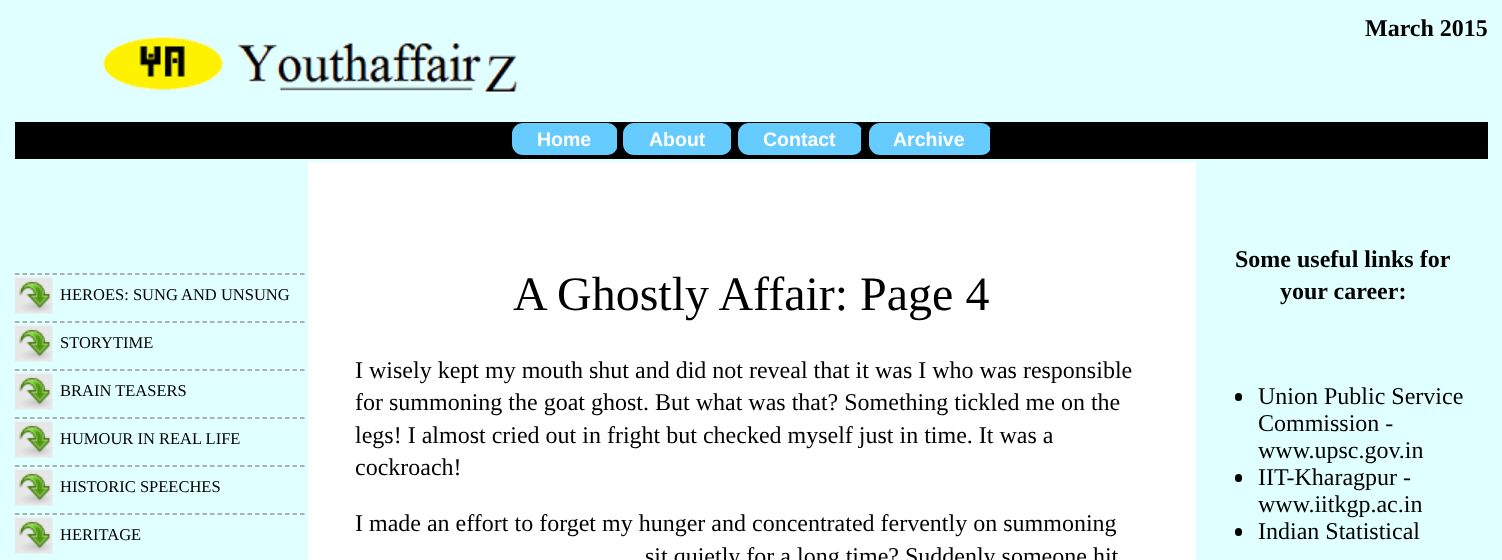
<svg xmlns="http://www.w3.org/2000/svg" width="1502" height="560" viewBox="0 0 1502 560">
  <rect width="100%" height="100%" fill="#e0ffff"/>
  <image x="102" y="36" width="416" height="58" href="img/1.png"/>
  <path d="M15 122h1473v37H15z" fill="#000"/>
  <rect x="512" y="123" width="106" height="32" rx="11" fill="#6cf"/>
  <path d="M617 129h1v21H617z" fill="#000"/>
  <rect x="623" y="123" width="109" height="32" rx="11" fill="#6cf"/>
  <path d="M731 129h1v21H731z" fill="#000"/>
  <rect x="738" y="123" width="125" height="32" rx="11" fill="#6cf"/>
  <path d="M861 129h2v21H861z" fill="#000"/>
  <rect x="869" y="123" width="123" height="32" rx="11" fill="#6cf"/>
  <path d="M990 129h2v21H990z" fill="#000"/>
  <image x="15" y="277" width="38" height="37" href="img/2.png"/>
  <path d="M15 274H304.5" fill="none" stroke="#999" stroke-width="1.5" stroke-dasharray="4.5 3"/>
  <image x="15" y="325" width="38" height="37" href="img/2.png"/>
  <path d="M15 322H304.5" fill="none" stroke="#999" stroke-width="1.5" stroke-dasharray="4.5 3"/>
  <image x="15" y="373" width="38" height="37" href="img/2.png"/>
  <path d="M15 370H304.5" fill="none" stroke="#999" stroke-width="1.5" stroke-dasharray="4.5 3"/>
  <image x="15" y="421" width="38" height="37" href="img/2.png"/>
  <path d="M15 418H304.5" fill="none" stroke="#999" stroke-width="1.5" stroke-dasharray="4.5 3"/>
  <image x="15" y="469" width="38" height="37" href="img/2.png"/>
  <path d="M15 466H304.5" fill="none" stroke="#999" stroke-width="1.5" stroke-dasharray="4.5 3"/>
  <image x="15" y="517" width="38" height="37" href="img/2.png"/>
  <path d="M15 514H304.5" fill="none" stroke="#999" stroke-width="1.5" stroke-dasharray="4.5 3"/>
  <path d="M308 162h888v398H308z" fill="#fff"/>
  <rect x="1235" y="393" width="7" height="8" rx="3.5" fill="#000"/>
  <rect x="1235" y="474" width="7" height="8" rx="3.5" fill="#000"/>
  <rect x="1235" y="528" width="7" height="8" rx="3.5" fill="#000"/>
  <text x="1365" y="36" font-family="Liberation Serif" font-size="24" font-weight="bold" fill="#000">March 2015</text>
  <g font-family="Liberation Sans" font-size="19.5" font-weight="bold" fill="#fff">
    <text x="537" y="146">Home</text>
    <text x="649" y="146">About</text>
    <text x="763" y="146">Contact</text>
    <text x="893" y="146">Archive</text>
  </g>
  <g font-family="Liberation Serif" font-size="16.5" fill="#000">
    <text x="60" y="300">HEROES: SUNG AND UNSUNG</text>
    <text x="60" y="348">STORYTIME</text>
    <text x="60" y="396">BRAIN TEASERS</text>
    <text x="60" y="444">HUMOUR IN REAL LIFE</text>
    <text x="60" y="492">HISTORIC SPEECHES</text>
    <text x="60" y="540">HERITAGE</text>
  </g>
  <text x="513" y="310" font-family="Liberation Serif" font-size="48" fill="#000">A Ghostly Affair: Page 4</text>
  <g font-family="Liberation Serif" font-size="24" fill="#000">
    <text x="355" y="378">I wisely kept my mouth shut and did not reveal that it was I who was responsible</text>
    <text x="355" y="410">for summoning the goat ghost. But what was that? Something tickled me on the</text>
    <text x="355" y="443">legs! I almost cried out in fright but checked myself just in time. It was a</text>
    <text x="355" y="475">cockroach!</text>
    <text x="355" y="531">I made an effort to forget my hunger and concentrated fervently on summoning</text>
    <text x="645" y="564">sit quietly for a long time? Suddenly someone hit</text>
  </g>
  <g font-family="Liberation Serif" font-size="24" font-weight="bold" fill="#000">
    <text x="1235" y="267">Some useful links for</text>
    <text x="1280" y="299">your career:</text>
  </g>
  <g font-family="Liberation Serif" font-size="24" fill="#000">
    <text x="1258" y="404">Union Public Service</text>
    <text x="1258" y="431">Commission -</text>
    <text x="1258" y="458">www.upsc.gov.in</text>
    <text x="1258" y="485">IIT-Kharagpur -</text>
    <text x="1258" y="512">www.iitkgp.ac.in</text>
    <text x="1258" y="539">Indian Statistical</text>
  </g>
</svg>
